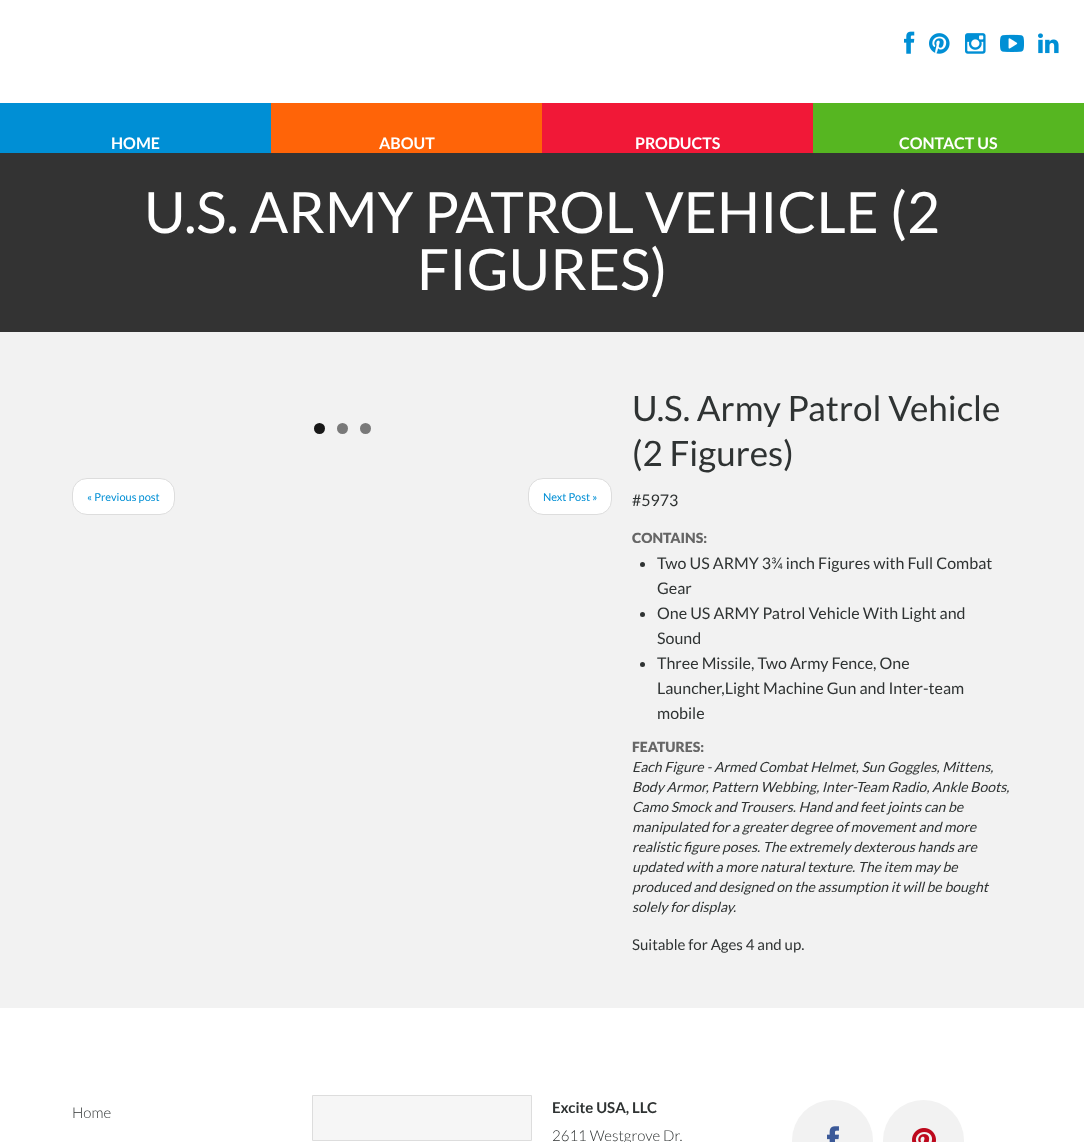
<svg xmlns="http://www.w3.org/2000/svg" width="1084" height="1142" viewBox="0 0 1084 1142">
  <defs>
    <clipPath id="clip1"><path d="M72 183h940v114H72z"/></clipPath>
  </defs>
  <rect width="100%" height="100%" fill="#fff"/>
  <image x="904" y="31" width="11" height="23" href="img/1.png"/>
  <image x="929" y="33" width="21" height="21" href="img/2.png"/>
  <image x="965" y="33" width="21" height="21" href="img/3.png"/>
  <image x="1000" y="34" width="24" height="18" href="img/4.png"/>
  <image x="1038" y="33" width="21" height="21" href="img/5.png"/>
  <path d="M0 103h271v50H0z" fill="#008fd5"/>
  <path d="M271 103h271v50H271z" fill="#ff6408"/>
  <path d="M542 103h271v50H542z" fill="#f11837"/>
  <path d="M813 103h271v50H813z" fill="#56b621"/>
  <path d="M0 332h1084v676H0z" fill="#f2f2f2"/>
  <path d="M0 153h1084v179H0z" fill="#333"/>
  <circle cx="319.5" cy="428.5" r="5.5" fill="#181818"/>
  <circle cx="342.5" cy="428.5" r="5.5" fill="#797979"/>
  <circle cx="365.5" cy="428.5" r="5.5" fill="#797979"/>
  <rect x="72.5" y="478.5" width="102" height="36" rx="14.5" fill="#fff" stroke="#ddd"/>
  <rect x="528.5" y="478.5" width="83" height="36" rx="14.5" fill="#fff" stroke="#ddd"/>
  <circle cx="642.5" cy="564.5" r="2.5" fill="#2f3333"/>
  <circle cx="642.5" cy="614.5" r="2.5" fill="#2f3333"/>
  <circle cx="642.5" cy="664.5" r="2.5" fill="#2f3333"/>
  <path d="M312.5 1095.5h219v45H312.5z" fill="#f6f6f6" stroke="#ddd"/>
  <circle cx="832.5" cy="1140.5" r="40.5" fill="#f2f2f2"/>
  <image x="827" y="1126" width="12" height="16" href="img/6.png"/>
  <circle cx="923.5" cy="1140.5" r="40.5" fill="#f2f2f2"/>
  <image x="912" y="1128" width="24" height="14" href="img/7.png"/>
  <g font-family="Lato" font-size="16" font-weight="bold" fill="#fff">
    <text x="111" y="149">HOME</text>
    <text x="379" y="149">ABOUT</text>
    <text x="635" y="149">PRODUCTS</text>
    <text x="899" y="149">CONTACT US</text>
  </g>
  <text x="144" y="233" font-family="Lato" font-size="57" fill="#fff">U.S. ARMY PATROL VEHICLE (2</text>
  <g clip-path="url(#clip1)">
    <text x="417" y="290" font-family="Lato" font-size="57" fill="#fff">FIGURES)</text>
  </g>
  <g font-family="Lato" font-size="11" fill="#008fd5">
    <text x="87" y="501">« Previous post</text>
    <text x="543" y="501">Next Post »</text>
  </g>
  <g font-family="Lato" font-size="35" fill="#2f3333">
    <text x="632" y="421">U.S. Army Patrol Vehicle</text>
    <text x="632" y="466">(2 Figures)</text>
  </g>
  <text x="632" y="506" font-family="Lato" font-size="16" fill="#2f3333">#5973</text>
  <text x="632" y="543" font-family="Lato" font-size="14" font-weight="900" fill="#666">CONTAINS:</text>
  <g font-family="Lato" font-size="16" fill="#2f3333">
    <text x="657" y="569">Two US ARMY 3¾ inch Figures with Full Combat</text>
    <text x="657" y="594">Gear</text>
    <text x="657" y="619">One US ARMY Patrol Vehicle With Light and</text>
    <text x="657" y="644">Sound</text>
    <text x="657" y="669">Three Missile, Two Army Fence, One</text>
    <text x="657" y="694">Launcher,Light Machine Gun and Inter-team</text>
    <text x="657" y="719">mobile</text>
  </g>
  <text x="632" y="752" font-family="Lato" font-size="14" font-weight="900" fill="#666">FEATURES:</text>
  <g font-family="Lato" font-size="14" font-style="italic" fill="#2f3333">
    <text x="632" y="772">Each Figure - Armed Combat Helmet, Sun Goggles, Mittens,</text>
    <text x="632" y="792">Body Armor, Pattern Webbing, Inter-Team Radio, Ankle Boots,</text>
    <text x="632" y="812">Camo Smock and Trousers. Hand and feet joints can be</text>
    <text x="632" y="832">manipulated for a greater degree of movement and more</text>
    <text x="632" y="852">realistic figure poses. The extremely dexterous hands are</text>
    <text x="632" y="872">updated with a more natural texture. The item may be</text>
    <text x="632" y="892">produced and designed on the assumption it will be bought</text>
    <text x="632" y="912">solely for display.</text>
  </g>
  <text x="632" y="950" font-family="Lato" font-size="15" fill="#2f3333">Suitable for Ages 4 and up.</text>
  <text x="72" y="1118" font-family="Lato" font-size="15" font-weight="300" fill="#2f3333">Home</text>
  <text x="552" y="1113" font-family="Lato" font-size="15" font-weight="bold" fill="#2f3333">Excite USA, LLC</text>
  <text x="552" y="1141" font-family="Lato" font-size="15" font-weight="300" fill="#2f3333">2611 Westgrove Dr.</text>
</svg>
